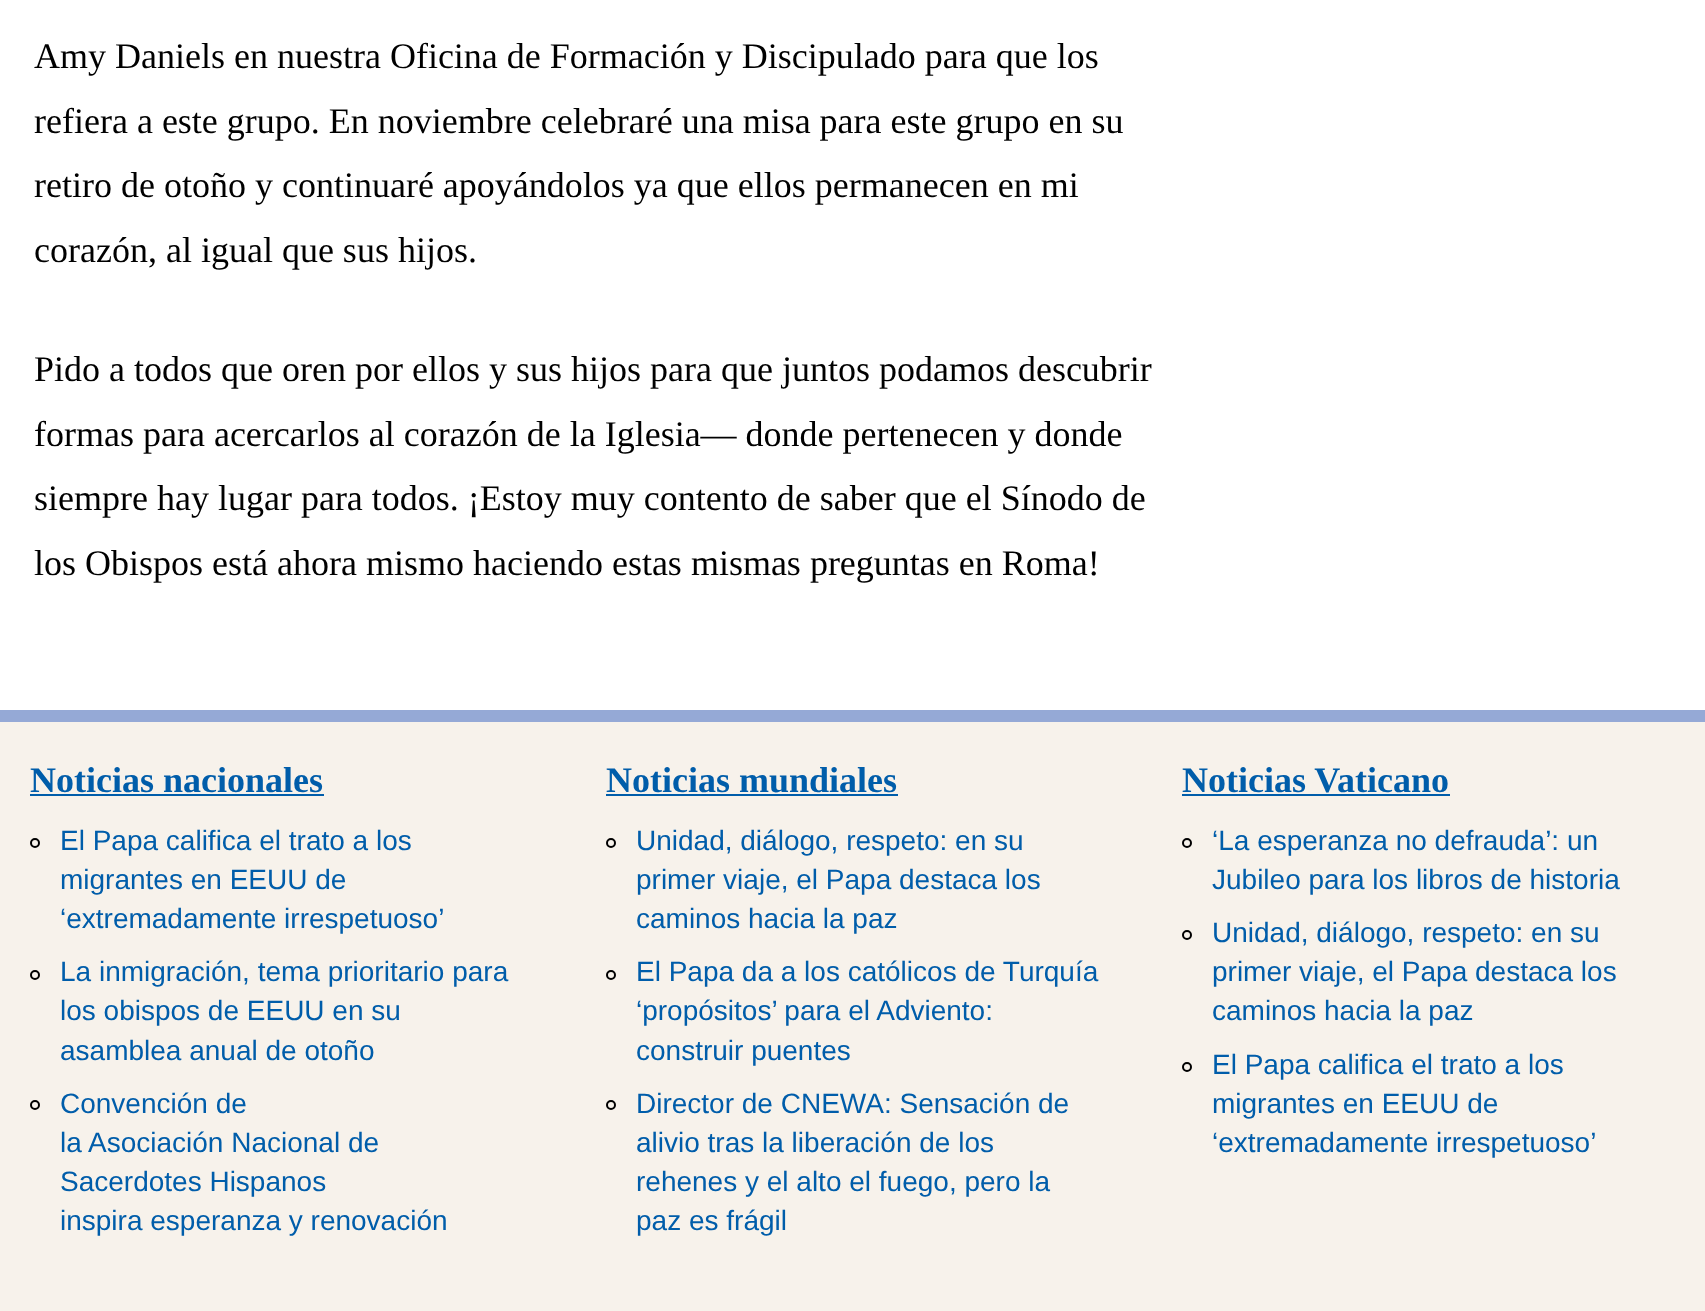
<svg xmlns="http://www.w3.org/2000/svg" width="1705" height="1311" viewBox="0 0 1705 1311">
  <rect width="100%" height="100%" fill="#fff"/>
  <path d="M0 722h1705v589H0z" fill="#f7f2eb"/>
  <path d="M0 710h1705v12H0z" fill="#95a9d6"/>
  <path d="M30 794h294v2H30z" fill="#005daa"/>
  <circle cx="35" cy="843" r="4" fill="none" stroke="#000" stroke-width="2"/>
  <circle cx="35" cy="975" r="4" fill="none" stroke="#000" stroke-width="2"/>
  <circle cx="35" cy="1105" r="4" fill="none" stroke="#000" stroke-width="2"/>
  <path d="M606 794h292v2H606z" fill="#005daa"/>
  <circle cx="611" cy="843" r="4" fill="none" stroke="#000" stroke-width="2"/>
  <circle cx="611" cy="975" r="4" fill="none" stroke="#000" stroke-width="2"/>
  <circle cx="611" cy="1105" r="4" fill="none" stroke="#000" stroke-width="2"/>
  <path d="M1182 794h268v2H1182z" fill="#005daa"/>
  <circle cx="1187" cy="843" r="4" fill="none" stroke="#000" stroke-width="2"/>
  <circle cx="1187" cy="935" r="4" fill="none" stroke="#000" stroke-width="2"/>
  <circle cx="1187" cy="1067" r="4" fill="none" stroke="#000" stroke-width="2"/>
  <g font-family="Liberation Serif" font-size="36" fill="#000">
    <text x="34" y="68">Amy Daniels en nuestra Oficina de Formación y Discipulado para que los</text>
    <text x="34" y="133">refiera a este grupo. En noviembre celebraré una misa para este grupo en su</text>
    <text x="34" y="197">retiro de otoño y continuaré apoyándolos ya que ellos permanecen en mi</text>
    <text x="34" y="262">corazón, al igual que sus hijos.</text>
    <text x="34" y="381">Pido a todos que oren por ellos y sus hijos para que juntos podamos descubrir</text>
    <text x="34" y="446">formas para acercarlos al corazón de la Iglesia— donde pertenecen y donde</text>
    <text x="34" y="510">siempre hay lugar para todos. ¡Estoy muy contento de saber que el Sínodo de</text>
    <text x="34" y="575">los Obispos está ahora mismo haciendo estas mismas preguntas en Roma!</text>
  </g>
  <text x="30" y="792" font-family="Liberation Serif" font-size="36" font-weight="bold" fill="#005daa">Noticias nacionales</text>
  <g font-family="Liberation Sans" font-size="28" fill="#005daa">
    <text x="60" y="850">El Papa califica el trato a los</text>
    <text x="60" y="889">migrantes en EEUU de</text>
    <text x="60" y="928">‘extremadamente irrespetuoso’</text>
    <text x="60" y="981">La inmigración, tema prioritario para</text>
    <text x="60" y="1020">los obispos de EEUU en su</text>
    <text x="60" y="1060">asamblea anual de otoño</text>
    <text x="60" y="1113">Convención de</text>
    <text x="60" y="1152">la Asociación Nacional de</text>
    <text x="60" y="1191">Sacerdotes Hispanos</text>
    <text x="60" y="1230">inspira esperanza y renovación</text>
  </g>
  <text x="606" y="792" font-family="Liberation Serif" font-size="36" font-weight="bold" fill="#005daa">Noticias mundiales</text>
  <g font-family="Liberation Sans" font-size="28" fill="#005daa">
    <text x="636" y="850">Unidad, diálogo, respeto: en su</text>
    <text x="636" y="889">primer viaje, el Papa destaca los</text>
    <text x="636" y="928">caminos hacia la paz</text>
    <text x="636" y="981">El Papa da a los católicos de Turquía</text>
    <text x="636" y="1020">‘propósitos’ para el Adviento:</text>
    <text x="636" y="1060">construir puentes</text>
    <text x="636" y="1113">Director de CNEWA: Sensación de</text>
    <text x="636" y="1152">alivio tras la liberación de los</text>
    <text x="636" y="1191">rehenes y el alto el fuego, pero la</text>
    <text x="636" y="1230">paz es frágil</text>
  </g>
  <text x="1182" y="792" font-family="Liberation Serif" font-size="36" font-weight="bold" fill="#005daa">Noticias Vaticano</text>
  <g font-family="Liberation Sans" font-size="28" fill="#005daa">
    <text x="1212" y="850">‘La esperanza no defrauda’: un</text>
    <text x="1212" y="889">Jubileo para los libros de historia</text>
    <text x="1212" y="942">Unidad, diálogo, respeto: en su</text>
    <text x="1212" y="981">primer viaje, el Papa destaca los</text>
    <text x="1212" y="1020">caminos hacia la paz</text>
    <text x="1212" y="1074">El Papa califica el trato a los</text>
    <text x="1212" y="1113">migrantes en EEUU de</text>
    <text x="1212" y="1152">‘extremadamente irrespetuoso’</text>
  </g>
</svg>
